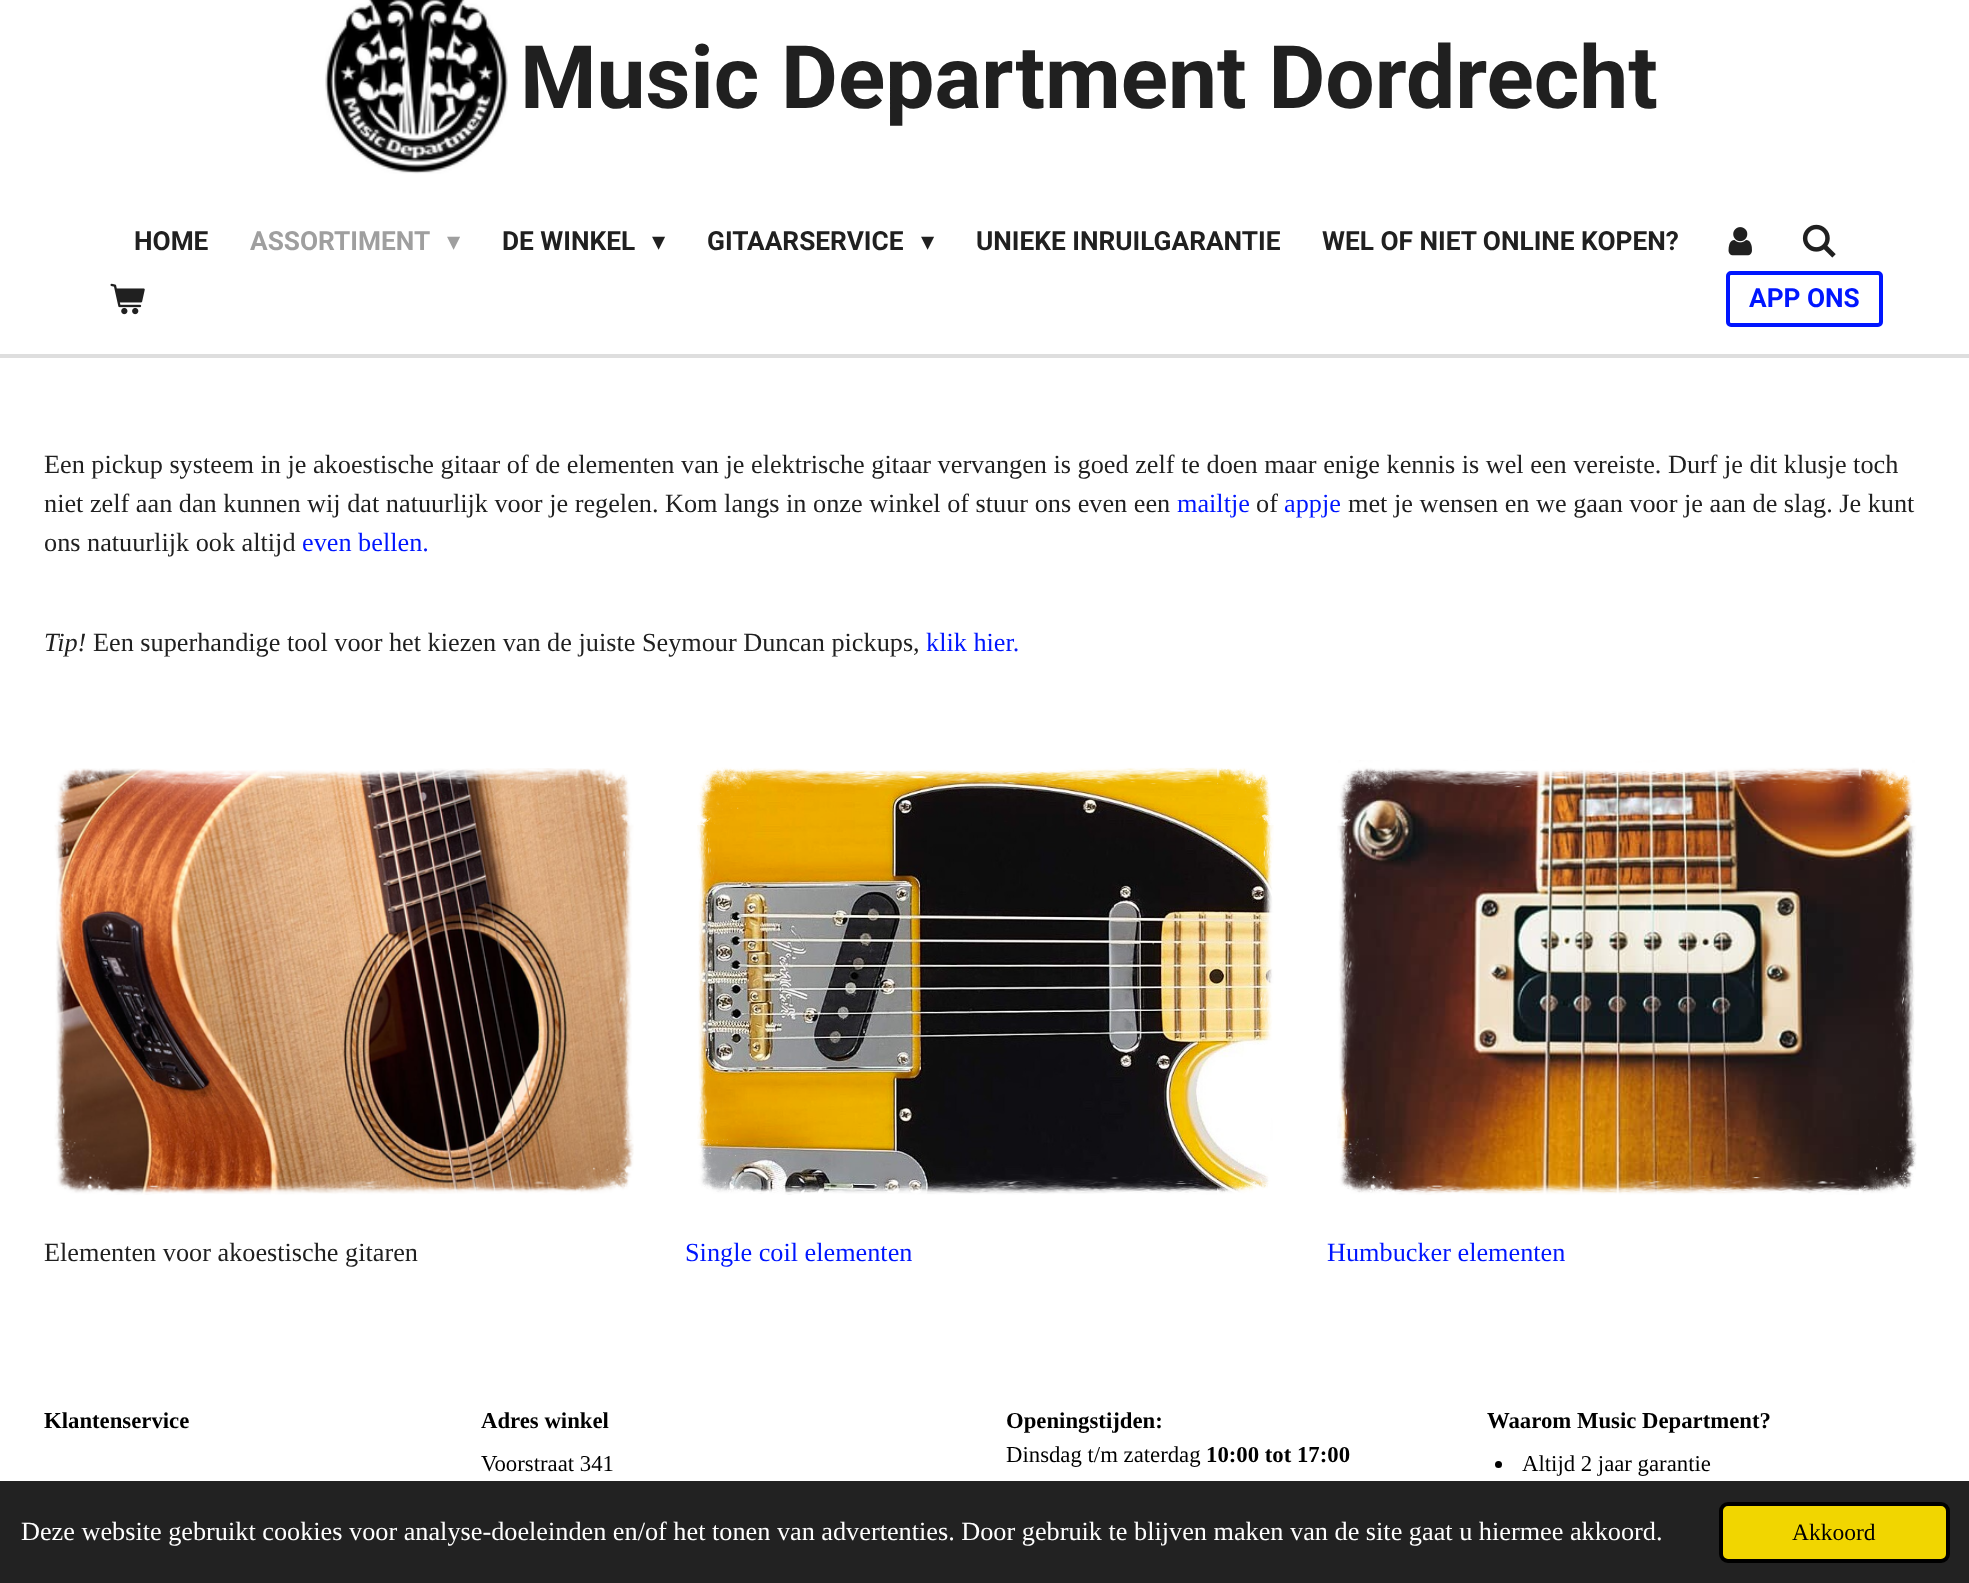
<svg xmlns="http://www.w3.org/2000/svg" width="1969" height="1583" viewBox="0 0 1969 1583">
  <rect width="100%" height="100%" fill="#fff"/>
  <image x="325" y="0" width="183" height="174" href="img/1.png"/>
  <image x="1728" y="227" width="24" height="29" href="img/2.png"/>
  <image x="1802" y="224" width="34" height="34" href="img/3.png"/>
  <image x="110" y="283" width="35" height="32" href="img/4.png"/>
  <rect x="1728" y="273" width="153" height="52" rx="3" fill="none" stroke="#0016ff" stroke-width="4"/>
  <path d="M0 354h1969v4H0z" fill="#dedede"/>
  <image x="54" y="768" width="580" height="427" href="img/5.png"/>
  <image x="697" y="767" width="577" height="428" href="img/6.png"/>
  <image x="1337" y="760" width="580" height="435" href="img/7.png"/>
  <circle cx="1498.5" cy="1464.5" r="3.5" fill="#000"/>
  <path d="M0 1481h1969v102H0z" fill="#222"/>
  <rect x="1721" y="1504" width="227" height="57" rx="7" fill="#f1d600" stroke="#000" stroke-width="4"/>
  <text x="520" y="108" font-family="Roboto" font-size="87.5" font-weight="bold" fill="#202020">Music Department Dordrecht</text>
  <text x="134" y="250" font-family="Roboto" font-size="26.25" font-weight="bold" fill="#202020">HOME</text>
  <text x="250" y="250" font-family="Roboto" font-size="26.25" font-weight="bold" fill="#9f9f9f">ASSORTIMENT</text>
  <text x="447" y="250" font-family="DejaVu Sans" font-size="26.25" fill="#9f9f9f">▾</text>
  <text x="502" y="250" font-family="Roboto" font-size="26.25" font-weight="bold" fill="#202020">DE WINKEL</text>
  <text x="652" y="250" font-family="DejaVu Sans" font-size="26.25" fill="#202020">▾</text>
  <text x="707" y="250" font-family="Roboto" font-size="26.25" font-weight="bold" fill="#202020">GITAARSERVICE</text>
  <text x="921" y="250" font-family="DejaVu Sans" font-size="26.25" fill="#202020">▾</text>
  <g font-family="Roboto" font-size="26.25" font-weight="bold" fill="#202020">
    <text x="976" y="250">UNIEKE INRUILGARANTIE</text>
    <text x="1322" y="250">WEL OF NIET ONLINE KOPEN?</text>
  </g>
  <text x="1749" y="307" font-family="Roboto" font-size="26.25" font-weight="bold" fill="#0016ff">APP ONS</text>
  <g font-family="Liberation Serif" font-size="26.25" fill="#202020">
    <text x="44" y="473">Een pickup systeem in je akoestische gitaar of de elementen van je elektrische gitaar vervangen is goed zelf te doen maar enige kennis is wel een vereiste. Durf je dit klusje toch</text>
    <text x="44" y="512">niet zelf aan dan kunnen wij dat natuurlijk voor je regelen. Kom langs in onze winkel of stuur ons even een</text>
  </g>
  <text x="1177" y="512" font-family="Liberation Serif" font-size="26.25" fill="#0016ff">mailtje</text>
  <text x="1256" y="512" font-family="Liberation Serif" font-size="26.25" fill="#202020">of</text>
  <text x="1284" y="512" font-family="Liberation Serif" font-size="26.25" fill="#0016ff">appje</text>
  <g font-family="Liberation Serif" font-size="26.25" fill="#202020">
    <text x="1348" y="512">met je wensen en we gaan voor je aan de slag. Je kunt</text>
    <text x="44" y="551">ons natuurlijk ook altijd</text>
  </g>
  <text x="302" y="551" font-family="Liberation Serif" font-size="26.25" fill="#0016ff">even bellen.</text>
  <text x="44" y="651" font-family="Liberation Serif" font-size="26.25" font-style="italic" fill="#202020">Tip!</text>
  <text x="93" y="651" font-family="Liberation Serif" font-size="26.25" fill="#202020">Een superhandige tool voor het kiezen van de juiste Seymour Duncan pickups,</text>
  <text x="926" y="651" font-family="Liberation Serif" font-size="26.25" fill="#0016ff">klik hier.</text>
  <text x="44" y="1261" font-family="Liberation Serif" font-size="26.25" fill="#202020">Elementen voor akoestische gitaren</text>
  <g font-family="Liberation Serif" font-size="26.25" fill="#0016ff">
    <text x="685" y="1261">Single coil elementen</text>
    <text x="1327" y="1261">Humbucker elementen</text>
  </g>
  <g font-family="Liberation Serif" font-size="22.75" font-weight="bold" fill="#000">
    <text x="44" y="1428">Klantenservice</text>
    <text x="481" y="1428">Adres winkel</text>
  </g>
  <text x="481" y="1471" font-family="Liberation Serif" font-size="22.75" fill="#000">Voorstraat 341</text>
  <text x="1006" y="1428" font-family="Liberation Serif" font-size="22.75" font-weight="bold" fill="#000">Openingstijden:</text>
  <text x="1006" y="1462" font-family="Liberation Serif" font-size="22.75" fill="#000">Dinsdag t/m zaterdag</text>
  <g font-family="Liberation Serif" font-size="22.75" font-weight="bold" fill="#000">
    <text x="1206" y="1462">10:00 tot 17:00</text>
    <text x="1487" y="1428">Waarom Music Department?</text>
  </g>
  <text x="1522" y="1471" font-family="Liberation Serif" font-size="22.75" fill="#000">Altijd 2 jaar garantie</text>
  <text x="21" y="1540" font-family="Liberation Serif" font-size="26.25" fill="#fff">Deze website gebruikt cookies voor analyse-doeleinden en/of het tonen van advertenties. Door gebruik te blijven maken van de site gaat u hiermee akkoord.</text>
  <text x="1792" y="1540" font-family="Liberation Serif" font-size="23.5" fill="#000">Akkoord</text>
</svg>
